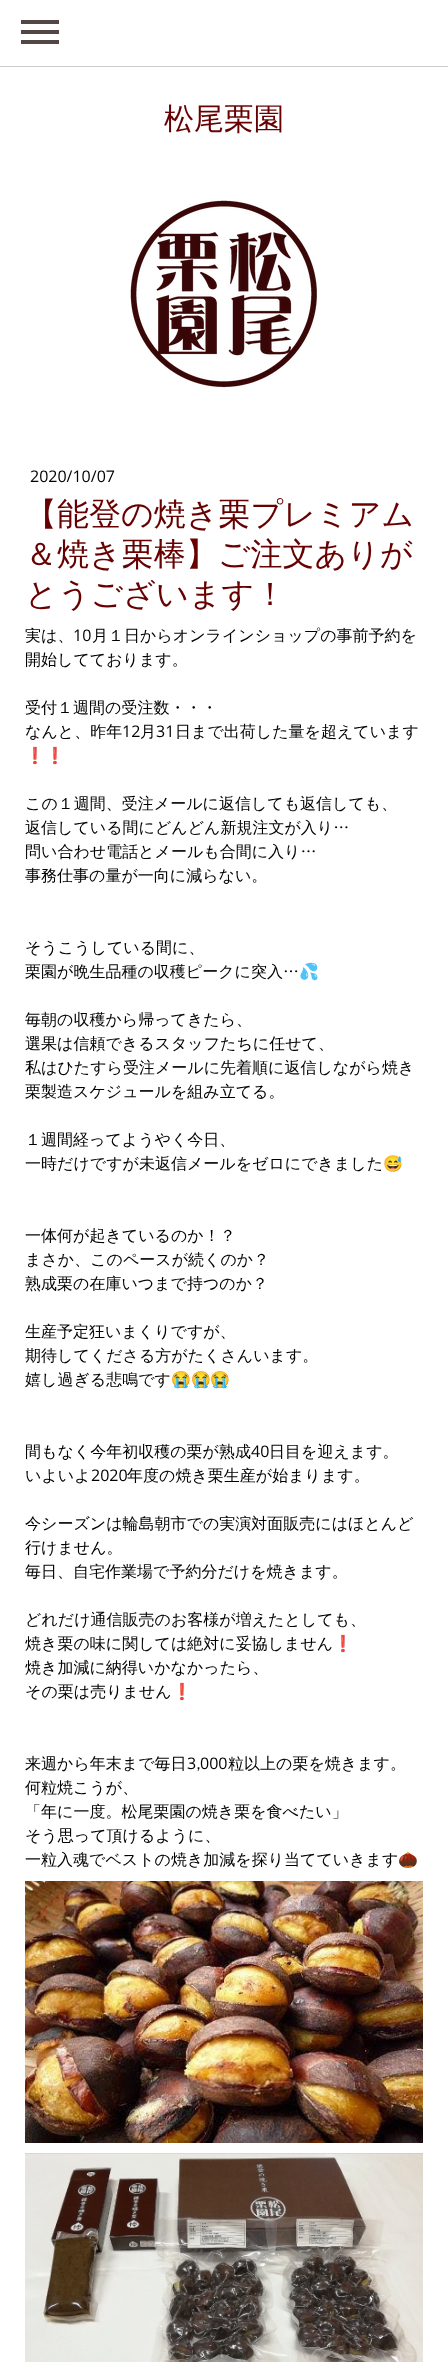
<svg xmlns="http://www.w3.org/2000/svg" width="448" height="2362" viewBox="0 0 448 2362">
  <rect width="100%" height="100%" fill="#fff"/>
  <path d="M21 30h38v4H21z" fill="#544645"/>
  <path d="M21 20h38v4H21z" fill="#544645"/>
  <path d="M21 40h38v4H21z" fill="#544645"/>
  <path d="M0 66h448v1H0z" fill="#ccc"/>
  <image x="130" y="200" width="187" height="188" href="img/1.png"/>
  <image x="25" y="1881" width="398" height="262" href="img/2.png"/>
  <image x="25" y="2153" width="398" height="209" href="img/3.png"/>
  <text x="164" y="129" font-family="WenQuanYi Zen Hei" font-size="30" font-weight="500" fill="#670000">松尾栗園</text>
  <text x="30" y="482" font-family="Open Sans" font-size="16" fill="#000">2020/10/07</text>
  <g font-family="WenQuanYi Zen Hei" font-size="32" font-weight="500" fill="#670000">
    <text x="25" y="525">【能登の焼き栗プレミアム</text>
    <text x="25" y="565">＆焼き栗棒】ご注文ありが</text>
    <text x="25" y="605">とうございます！</text>
  </g>
  <text x="25" y="641" font-family="WenQuanYi Zen Hei" font-size="16" font-weight="500" fill="#000">実は、</text>
  <text x="73" y="641" font-family="Open Sans" font-size="16" fill="#000">10</text>
  <g font-family="WenQuanYi Zen Hei" font-size="16" font-weight="500" fill="#000">
    <text x="92" y="641">月１日からオンラインショップの事前予約を</text>
    <text x="25" y="665">開始してております。</text>
    <text x="25" y="713">受付１週間の受注数・・・</text>
    <text x="25" y="737">なんと、昨年</text>
  </g>
  <text x="122" y="737" font-family="Open Sans" font-size="16" fill="#000">12</text>
  <text x="140" y="737" font-family="WenQuanYi Zen Hei" font-size="16" font-weight="500" fill="#000">月</text>
  <text x="156" y="737" font-family="Open Sans" font-size="16" fill="#000">31</text>
  <text x="175" y="737" font-family="WenQuanYi Zen Hei" font-size="16" font-weight="500" fill="#000">日まで出荷した量を超えています</text>
  <text x="25" y="761" font-family="Noto Color Emoji" font-size="16" fill="#000">❗️❗️</text>
  <g font-family="WenQuanYi Zen Hei" font-size="16" font-weight="500" fill="#000">
    <text x="25" y="809">この１週間、受注メールに返信しても返信しても、</text>
    <text x="25" y="833">返信している間にどんどん新規注文が入り…</text>
    <text x="25" y="857">問い合わせ電話とメールも合間に入り…</text>
    <text x="25" y="881">事務仕事の量が一向に減らない。</text>
    <text x="25" y="953">そうこうしている間に、</text>
    <text x="25" y="977">栗園が晩生品種の収穫ピークに突入…</text>
  </g>
  <text x="299" y="977" font-family="Noto Color Emoji" font-size="16" fill="#000">💦</text>
  <g font-family="WenQuanYi Zen Hei" font-size="16" font-weight="500" fill="#000">
    <text x="25" y="1025">毎朝の収穫から帰ってきたら、</text>
    <text x="25" y="1049">選果は信頼できるスタッフたちに任せて、</text>
    <text x="25" y="1073">私はひたすら受注メールに先着順に返信しながら焼き</text>
    <text x="25" y="1097">栗製造スケジュールを組み立てる。</text>
    <text x="25" y="1145">１週間経ってようやく今日、</text>
    <text x="25" y="1169">一時だけですが未返信メールをゼロにできました</text>
  </g>
  <text x="383" y="1169" font-family="Noto Color Emoji" font-size="16" fill="#000">😅</text>
  <g font-family="WenQuanYi Zen Hei" font-size="16" font-weight="500" fill="#000">
    <text x="25" y="1241">一体何が起きているのか！？</text>
    <text x="25" y="1265">まさか、このペースが続くのか？</text>
    <text x="25" y="1289">熟成栗の在庫いつまで持つのか？</text>
    <text x="25" y="1337">生産予定狂いまくりですが、</text>
    <text x="25" y="1361">期待してくださる方がたくさんいます。</text>
    <text x="25" y="1385">嬉し過ぎる悲鳴です</text>
  </g>
  <text x="171" y="1385" font-family="Noto Color Emoji" font-size="16" fill="#000">😭😭😭</text>
  <text x="25" y="1457" font-family="WenQuanYi Zen Hei" font-size="16" font-weight="500" fill="#000">間もなく今年初収穫の栗が熟成</text>
  <text x="251" y="1457" font-family="Open Sans" font-size="16" fill="#000">40</text>
  <g font-family="WenQuanYi Zen Hei" font-size="16" font-weight="500" fill="#000">
    <text x="269" y="1457">日目を迎えます。</text>
    <text x="25" y="1481">いよいよ</text>
  </g>
  <text x="91" y="1481" font-family="Open Sans" font-size="16" fill="#000">2020</text>
  <g font-family="WenQuanYi Zen Hei" font-size="16" font-weight="500" fill="#000">
    <text x="127" y="1481">年度の焼き栗生産が始まります。</text>
    <text x="25" y="1529">今シーズンは輪島朝市での実演対面販売にはほとんど</text>
    <text x="25" y="1553">行けません。</text>
    <text x="25" y="1577">毎日、自宅作業場で予約分だけを焼きます。</text>
    <text x="25" y="1625">どれだけ通信販売のお客様が増えたとしても、</text>
    <text x="25" y="1649">焼き栗の味に関しては絶対に妥協しません</text>
  </g>
  <text x="333" y="1649" font-family="Noto Color Emoji" font-size="16" fill="#000">❗</text>
  <g font-family="WenQuanYi Zen Hei" font-size="16" font-weight="500" fill="#000">
    <text x="25" y="1673">焼き加減に納得いかなかったら、</text>
    <text x="25" y="1697">その栗は売りません</text>
  </g>
  <text x="172" y="1697" font-family="Noto Color Emoji" font-size="16" fill="#000">❗</text>
  <text x="25" y="1769" font-family="WenQuanYi Zen Hei" font-size="16" font-weight="500" fill="#000">来週から年末まで毎日</text>
  <text x="187" y="1769" font-family="Open Sans" font-size="16" fill="#000">3</text>
  <text x="196" y="1769" font-family="WenQuanYi Zen Hei" font-size="16" font-weight="500" fill="#000">,</text>
  <text x="200" y="1769" font-family="Open Sans" font-size="16" fill="#000">000</text>
  <g font-family="WenQuanYi Zen Hei" font-size="16" font-weight="500" fill="#000">
    <text x="228" y="1769">粒以上の栗を焼きます。</text>
    <text x="25" y="1793">何粒焼こうが、</text>
    <text x="25" y="1817">「年に一度。松尾栗園の焼き栗を食べたい」</text>
    <text x="25" y="1841">そう思って頂けるように、</text>
    <text x="25" y="1865">一粒入魂でベストの焼き加減を探り当てていきます</text>
  </g>
  <text x="398" y="1865" font-family="Noto Color Emoji" font-size="16" fill="#000">🌰</text>
</svg>
